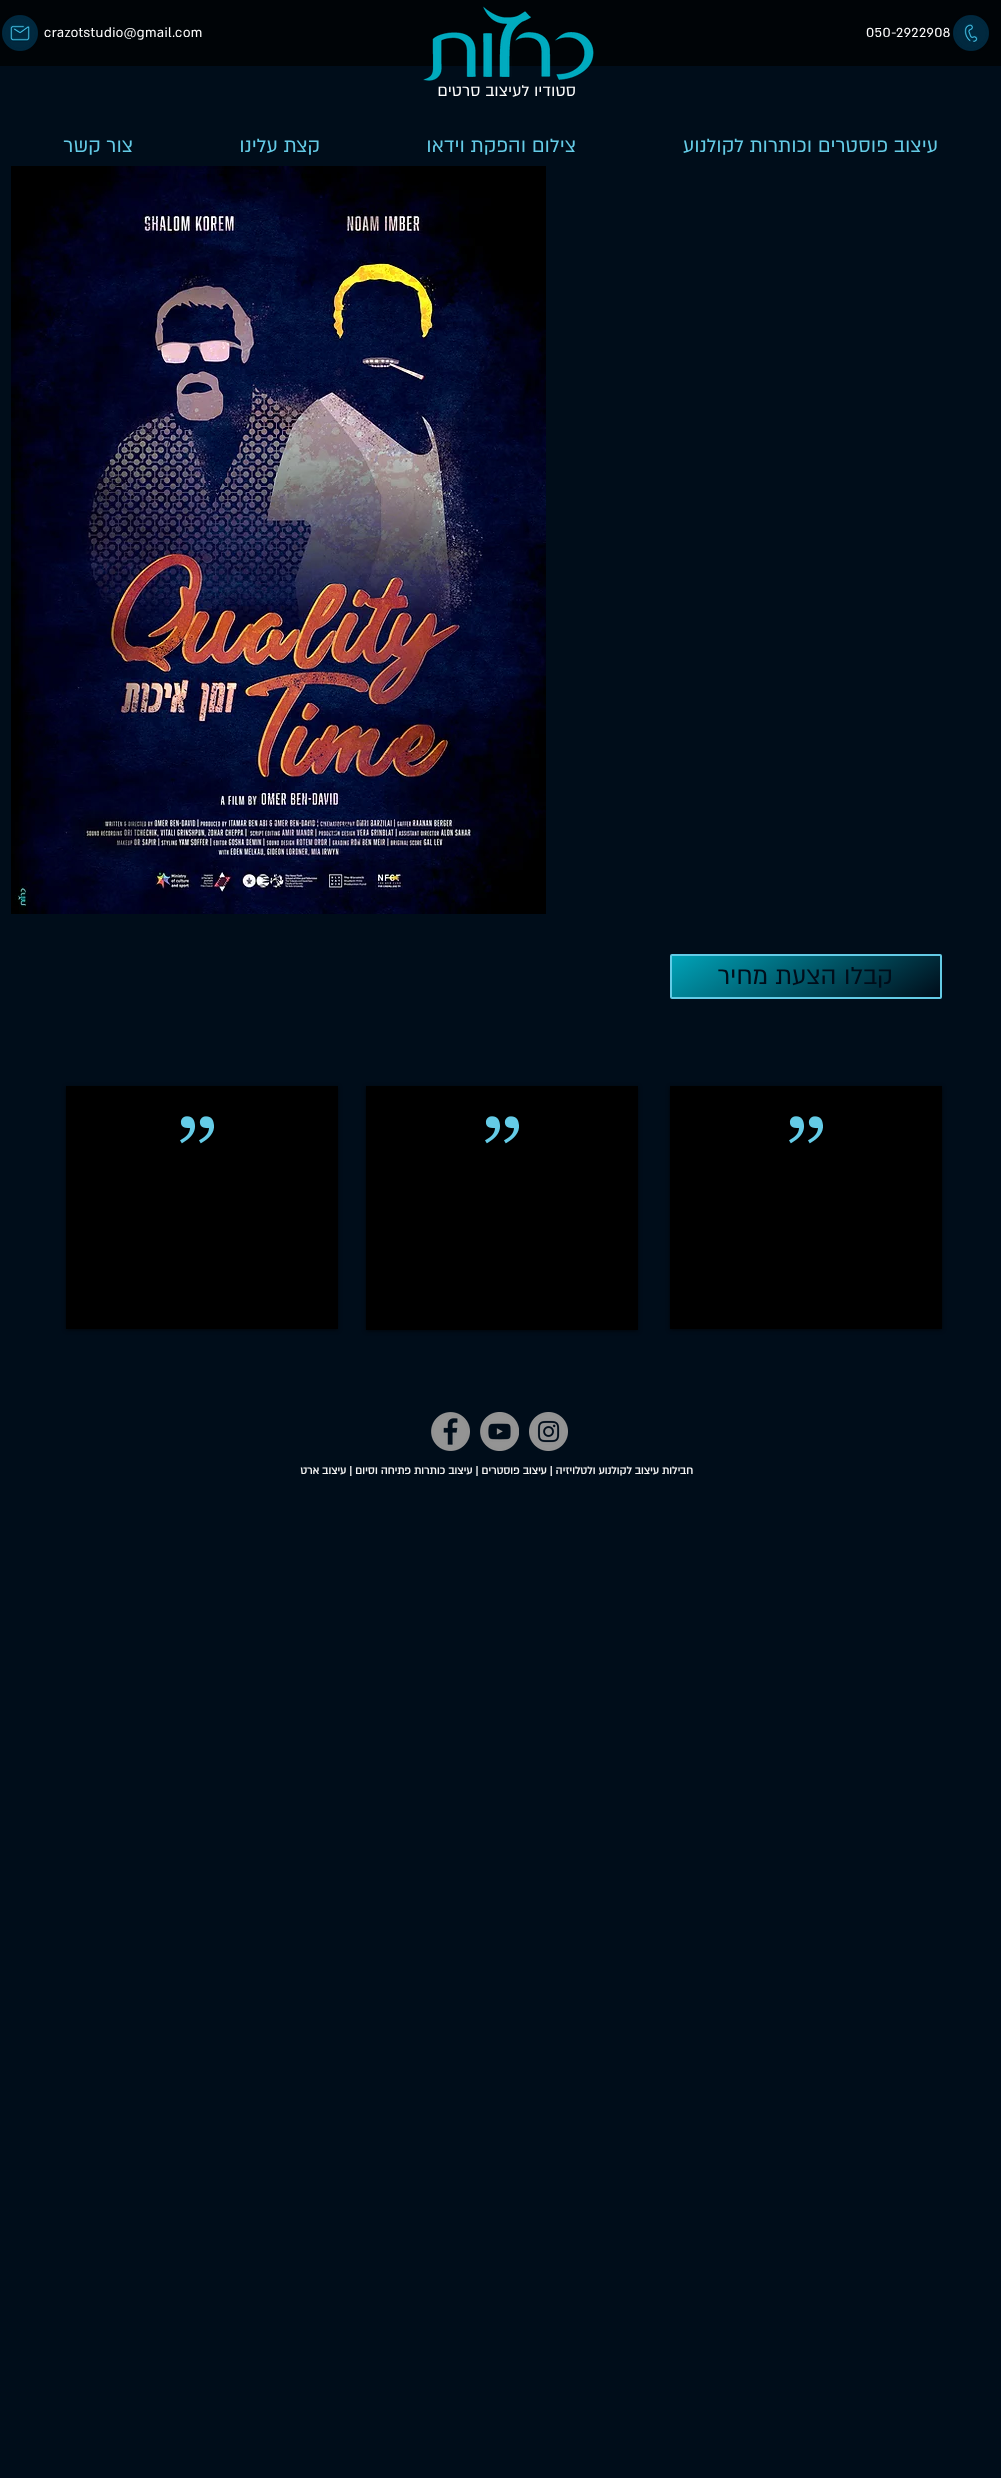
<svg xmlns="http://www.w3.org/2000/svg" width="1001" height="2478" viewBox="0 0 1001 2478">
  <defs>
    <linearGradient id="g1" gradientUnits="userSpaceOnUse" x1="853" y1="1051" x2="759" y2="902"><stop offset="0" stop-color="#000d1a"/><stop offset="1" stop-color="#00a2b7"/></linearGradient>
  </defs>
  <rect width="100%" height="100%" fill="#000d1a"/>
  <path d="M0 0h1001v66H0z" fill="#000407"/>
  <image x="953" y="15" width="36" height="36" href="img/1.png"/>
  <image x="2" y="15" width="36" height="36" href="img/2.png"/>
  <image x="423" y="6" width="171" height="75" href="img/3.png"/>
  <image x="11" y="166" width="535" height="748" href="img/4.png"/>
  <path d="M672 956h268v41H672z" fill="url(#g1)"/>
  <rect x="671" y="955" width="270" height="43" rx="1" fill="none" stroke="#64cbe6" stroke-width="2"/>
  <path d="M670 1087h272v243H670z" fill="#00000099" filter="blur(2px)"/>
  <path d="M670 1086h272v243H670z" fill="#000"/>
  <image x="789" y="1116" width="34" height="28" href="img/5.png"/>
  <path d="M366 1087h272v244H366z" fill="#00000099" filter="blur(2px)"/>
  <path d="M366 1086h272v244H366z" fill="#000"/>
  <image x="485" y="1116" width="34" height="28" href="img/5.png"/>
  <path d="M66 1087h272v243H66z" fill="#00000099" filter="blur(2px)"/>
  <path d="M66 1086h272v243H66z" fill="#000"/>
  <image x="180" y="1116" width="34" height="28" href="img/5.png"/>
  <image x="529" y="1412" width="39" height="39" href="img/6.png"/>
  <image x="480" y="1412" width="39" height="39" href="img/7.png"/>
  <image x="431" y="1412" width="39" height="39" href="img/8.png"/>
  <g font-family="'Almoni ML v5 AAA'" font-size="15" letter-spacing="0.45" fill="#fff">
    <text x="866" y="37">050-2922908</text>
    <text x="44" y="37">crazotstudio@gmail.com</text>
  </g>
  <text x="576" y="96" font-family="'Almoni ML v5 AAA'" font-size="18" direction="rtl" fill="#fff">סטודיו לעיצוב סרטים</text>
  <g font-family="'Almoni ML v5 AAA'" font-size="22" direction="rtl" fill="#64cbe6">
    <text x="938" y="152">עיצוב פוסטרים וכותרות לקולנוע</text>
    <text x="576" y="152">צילום והפקת וידאו</text>
    <text x="320" y="152">קצת עלינו</text>
    <text x="133" y="152">צור קשר</text>
  </g>
  <text x="893" y="984" font-family="'Almoni ML v5 AAA'" font-size="28" direction="rtl" fill="#000d1a">קבלו הצעת מחיר</text>
  <text x="693" y="1474" font-family="'Almoni ML v5 AAA'" font-size="12" font-weight="bold" direction="rtl" fill="#f3f3f3">חבילות עיצוב לקולנוע ולטלויזיה | עיצוב פוסטרים | עיצוב כותרות פתיחה וסיום | עיצוב ארט</text>
</svg>
